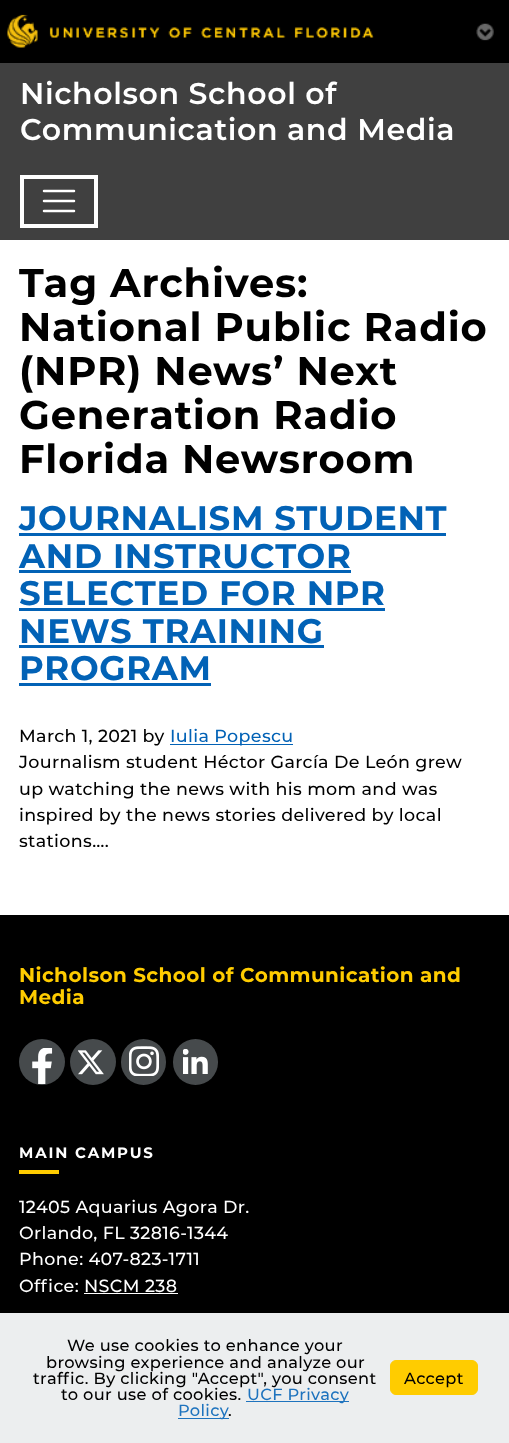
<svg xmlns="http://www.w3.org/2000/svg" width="509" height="1443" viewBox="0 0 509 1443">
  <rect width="100%" height="100%" fill="#fff"/>
  <path d="M0 0h509v63H0z" fill="#000"/>
  <image x="7" y="14" width="367" height="34" href="img/1.png"/>
  <image x="476" y="23" width="18" height="18" href="img/2.png"/>
  <path d="M0 63h509v177H0z" fill="#404040"/>
  <path d="M22 177h74v49H22z" fill="none" stroke="#fff" stroke-width="4"/>
  <path d="M44 191H74M44 201H74M44 211H74" fill="none" stroke="#fff" stroke-width="2.5" stroke-linecap="round"/>
  <path d="M19 533h427v3H19z" fill="#0262b6"/>
  <path d="M19 570h332v3H19z" fill="#0262b6"/>
  <path d="M19 608h366v3H19z" fill="#0262b6"/>
  <path d="M19 645h305v3H19z" fill="#0262b6"/>
  <path d="M19 683h192v3H19z" fill="#0262b6"/>
  <path d="M170 744h123v1H170z" fill="#0262b6"/>
  <path d="M0 915h509v398H0z" fill="#000"/>
  <circle cx="42" cy="1062" r="23" fill="#464a4c"/>
  <image x="32" y="1048" width="21" height="36" href="img/3.png"/>
  <circle cx="93" cy="1062" r="23" fill="#464a4c"/>
  <image x="78" y="1050" width="26" height="25" href="img/4.png"/>
  <rect x="121" y="1039" width="45" height="46" rx="22.5" fill="#464a4c"/>
  <image x="129" y="1046" width="30" height="30" href="img/5.png"/>
  <rect x="173" y="1039" width="45" height="46" rx="22.5" fill="#464a4c"/>
  <image x="183" y="1049" width="25" height="25" href="img/6.png"/>
  <path d="M19 1170h40v4H19z" fill="#fc0"/>
  <path d="M84 1293h94v1H84z" fill="#fff"/>
  <path d="M0 1313h509v130H0z" fill="#eceeef"/>
  <path d="M246 1401h103v1H246z" fill="#1e73be"/>
  <path d="M178 1418h51v1H178z" fill="#1e73be"/>
  <rect x="390.5" y="1360.5" width="87" height="34" rx="5.5" fill="#fc0" stroke="#fc0"/>
  <g font-family="Montserrat" font-size="30" font-weight="600" fill="#fff">
    <text x="20" y="104">Nicholson School of</text>
    <text x="20" y="140">Communication and Media</text>
  </g>
  <g font-family="Montserrat" font-size="40" font-weight="bold" fill="#000">
    <text x="19" y="297">Tag Archives:</text>
    <text x="19" y="341">National Public Radio</text>
    <text x="19" y="385">(NPR) News’ Next</text>
    <text x="19" y="429">Generation Radio</text>
    <text x="19" y="473">Florida Newsroom</text>
  </g>
  <g font-family="Montserrat" font-size="34" font-weight="bold" fill="#0262b6">
    <text x="19" y="530">JOURNALISM STUDENT</text>
    <text x="19" y="568">AND INSTRUCTOR</text>
    <text x="19" y="605">SELECTED FOR NPR</text>
    <text x="19" y="643">NEWS TRAINING</text>
    <text x="19" y="680">PROGRAM</text>
  </g>
  <text x="19" y="742" font-family="Montserrat" font-size="17.5" font-weight="500" fill="#000">March 1, 2021 by</text>
  <text x="170" y="742" font-family="Montserrat" font-size="17.5" font-weight="500" fill="#0262b6">Iulia Popescu</text>
  <g font-family="Montserrat" font-size="17.5" font-weight="500" fill="#000">
    <text x="19" y="768">Journalism student Héctor García De León grew</text>
    <text x="19" y="795">up watching the news with his mom and was</text>
    <text x="19" y="821">inspired by the news stories delivered by local</text>
    <text x="19" y="847">stations….</text>
  </g>
  <g font-family="Montserrat" font-size="20" font-weight="bold" fill="#fc0">
    <text x="19" y="982">Nicholson School of Communication and</text>
    <text x="19" y="1004">Media</text>
  </g>
  <text x="19" y="1158" font-family="Montserrat" font-size="15" font-weight="bold" letter-spacing="1.5" fill="#fff">MAIN CAMPUS</text>
  <g font-family="Montserrat" font-size="17.5" font-weight="500" fill="#fff">
    <text x="19" y="1213">12405 Aquarius Agora Dr.</text>
    <text x="19" y="1239">Orlando, FL 32816-1344</text>
    <text x="19" y="1265">Phone: 407-823-1711</text>
    <text x="19" y="1292">Office: NSCM 238</text>
  </g>
  <g font-family="Montserrat" font-size="16.25" font-weight="500" fill="#000">
    <text x="67" y="1351">We use cookies to enhance your</text>
    <text x="46" y="1368">browsing experience and analyze our</text>
    <text x="33" y="1384">traffic. By clicking "Accept", you consent</text>
    <text x="61" y="1400">to our use of cookies.</text>
  </g>
  <g font-family="Montserrat" font-size="16.25" font-weight="500" fill="#1e73be">
    <text x="247" y="1400">UCF Privacy</text>
    <text x="178" y="1416">Policy</text>
  </g>
  <g font-family="Montserrat" font-size="16.25" font-weight="500" fill="#000">
    <text x="228" y="1416">.</text>
    <text x="404" y="1384">Accept</text>
  </g>
</svg>
